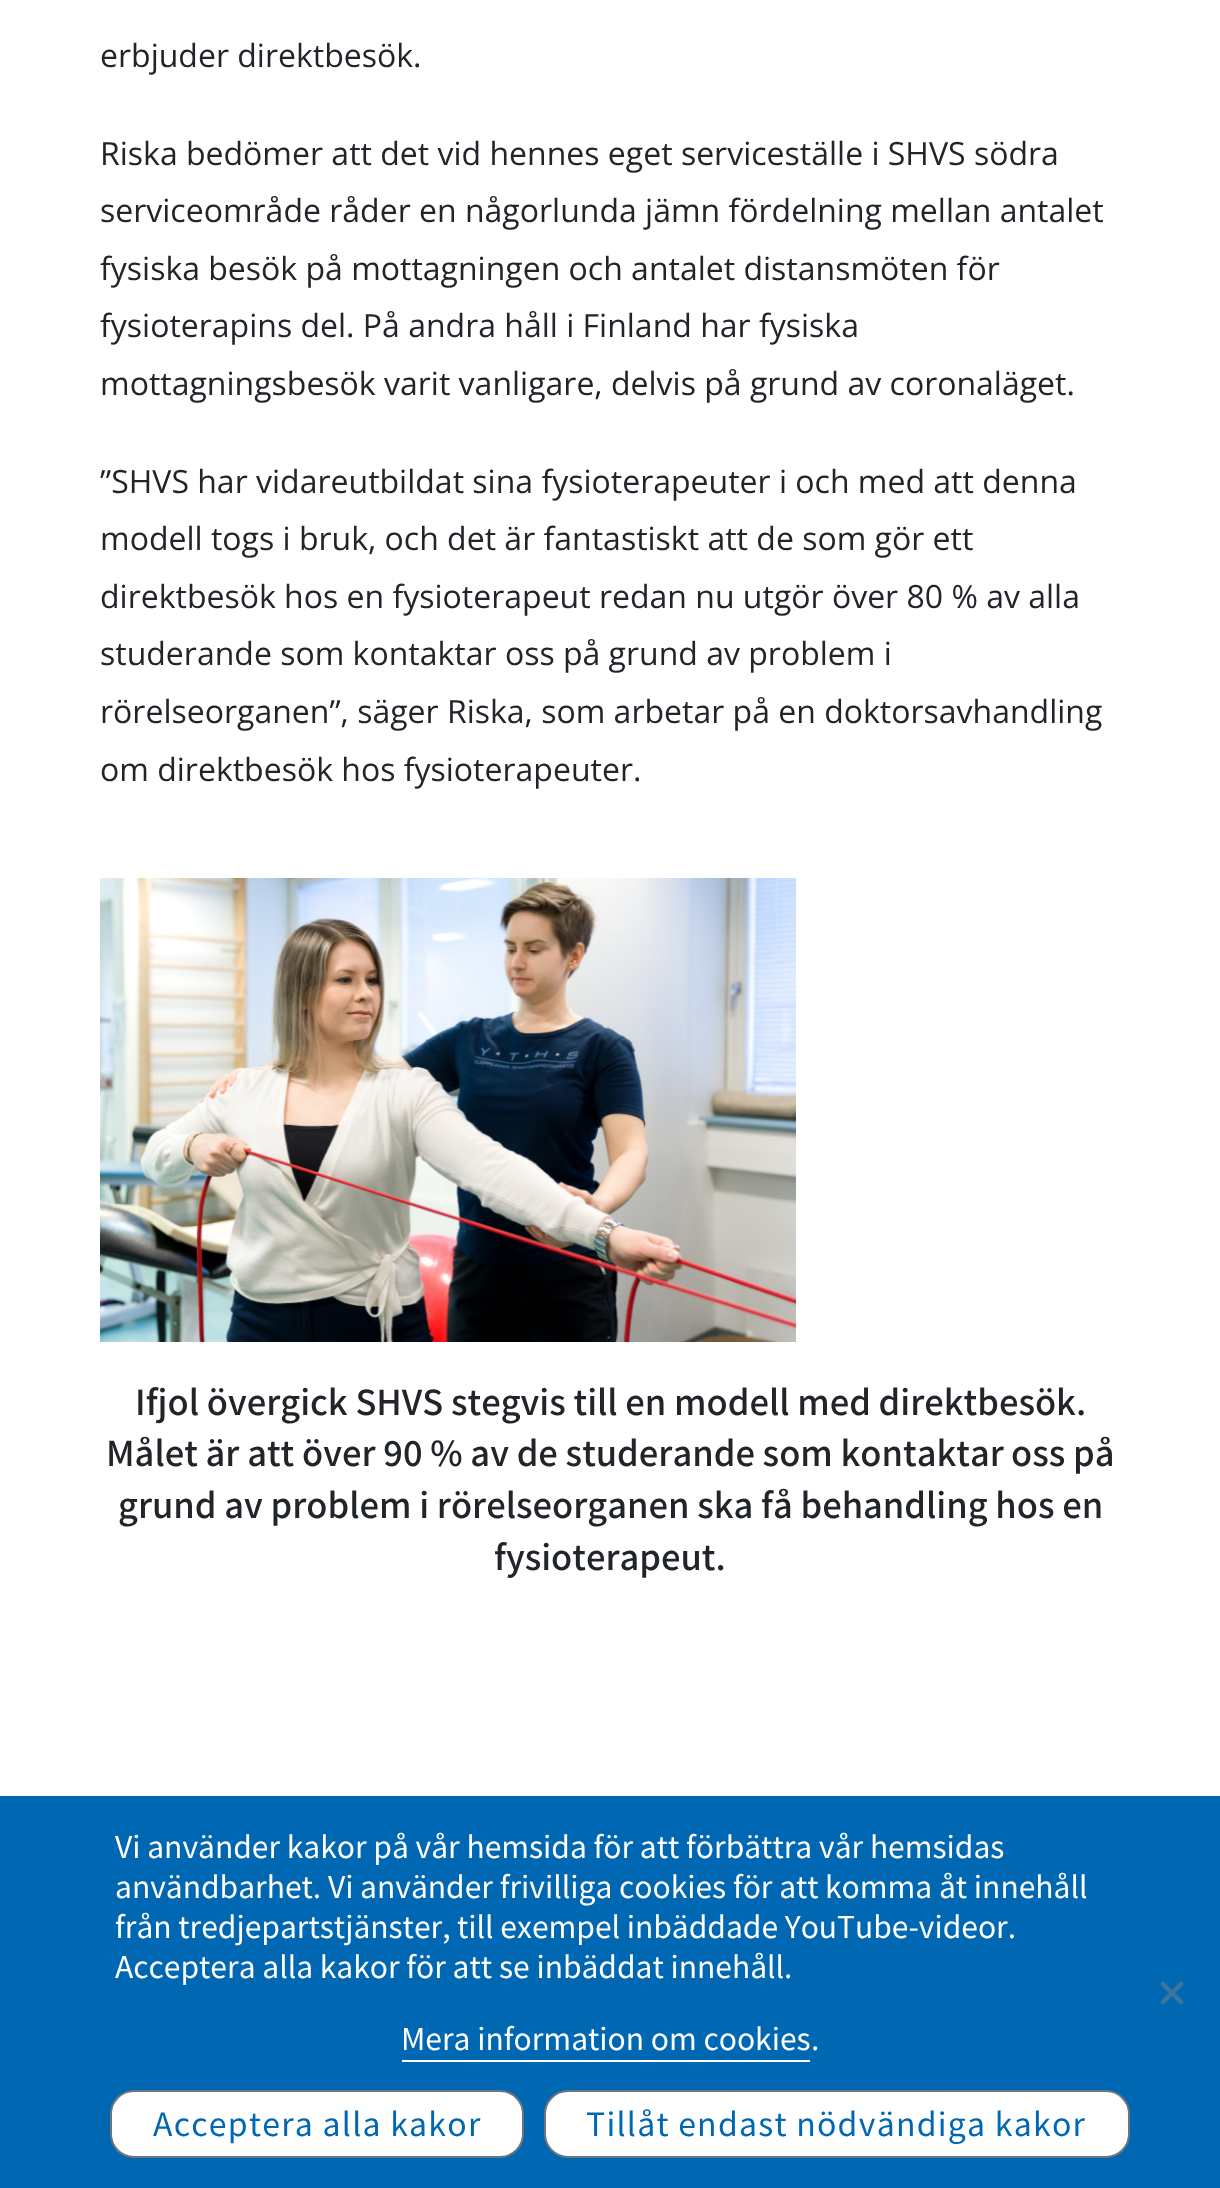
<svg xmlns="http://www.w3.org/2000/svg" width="1220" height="2188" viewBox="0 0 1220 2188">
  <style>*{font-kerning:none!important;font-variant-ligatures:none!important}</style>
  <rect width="100%" height="100%" fill="#fff"/>
  <image x="100" y="878" width="696" height="464" href="img/1.png"/>
  <path d="M0 1796h1220v392H0z" fill="#0068b3"/>
  <path d="M402 2060h408v2H402z" fill="#fff"/>
  <path d="M1181 1981L1184 1984L1163 2005L1160 2002Z" fill="#40749a"/>
  <path d="M1160 1984L1163 1981L1184 2002L1181 2005Z" fill="#40749a"/>
  <rect x="111" y="2091" width="412" height="66" rx="23" fill="#fff" stroke="#6c757d" stroke-width="2"/>
  <rect x="545" y="2091" width="584" height="66" rx="23" fill="#fff" stroke="#6c757d" stroke-width="2"/>
  <g font-family="Open Sans" font-size="32" fill="#212529">
    <text x="100" y="67">erbjuder direktbesök.</text>
    <text x="100" y="165">Riska bedömer att det vid hennes eget serviceställe i SHVS södra</text>
    <text x="100" y="222">serviceområde råder en någorlunda jämn fördelning mellan antalet</text>
    <text x="100" y="280">fysiska besök på mottagningen och antalet distansmöten för</text>
    <text x="100" y="337">fysioterapins del. På andra håll i Finland har fysiska</text>
    <text x="100" y="395">mottagningsbesök varit vanligare, delvis på grund av coronaläget.</text>
    <text x="100" y="493">”SHVS har vidareutbildat sina fysioterapeuter i och med att denna</text>
    <text x="100" y="550">modell togs i bruk, och det är fantastiskt att de som gör ett</text>
    <text x="100" y="608">direktbesök hos en fysioterapeut redan nu utgör över 80 % av alla</text>
    <text x="100" y="665">studerande som kontaktar oss på grund av problem i</text>
    <text x="100" y="723">rörelseorganen”, säger Riska, som arbetar på en doktorsavhandling</text>
    <text x="100" y="781">om direktbesök hos fysioterapeuter.</text>
  </g>
  <g font-family="Noto Sans SC" font-size="34.45" font-weight="500" fill="#212529">
    <text x="135" y="1415">Ifjol övergick SHVS stegvis till en modell med direktbesök.</text>
    <text x="106" y="1466">Målet är att över 90 % av de studerande som kontaktar</text>
    <text x="1011" y="1466">oss på</text>
    <text x="118" y="1518">grund av problem i rörelseorganen ska få behandling hos en</text>
    <text x="494" y="1570">fysioterapeut.</text>
  </g>
  <g font-family="Noto Sans SC" font-size="30" fill="#fff">
    <text x="115" y="1858">Vi använder kakor på vår hemsida för att förbättra</text>
    <text x="819" y="1858">vår hemsidas</text>
    <text x="115" y="1898">användbarhet. Vi använder frivilliga cookies för att</text>
    <text x="825" y="1898">komma åt innehåll</text>
    <text x="115" y="1938">från tredjepartstjänster,</text>
    <text x="457" y="1938">till exempel inbäddade YouTube-videor.</text>
    <text x="115" y="1978">Acceptera alla kakor för att</text>
    <text x="499" y="1978">se inbäddat innehåll.</text>
    <text x="401" y="2050">Mera information om cookies</text>
    <text x="811" y="2050">.</text>
  </g>
  <g font-family="Noto Sans SC" font-size="32" letter-spacing="1.25" fill="#0068b3">
    <text x="153" y="2136">Acceptera alla kakor</text>
    <text x="586" y="2136">Tillåt endast nödvändiga kakor</text>
  </g>
</svg>
